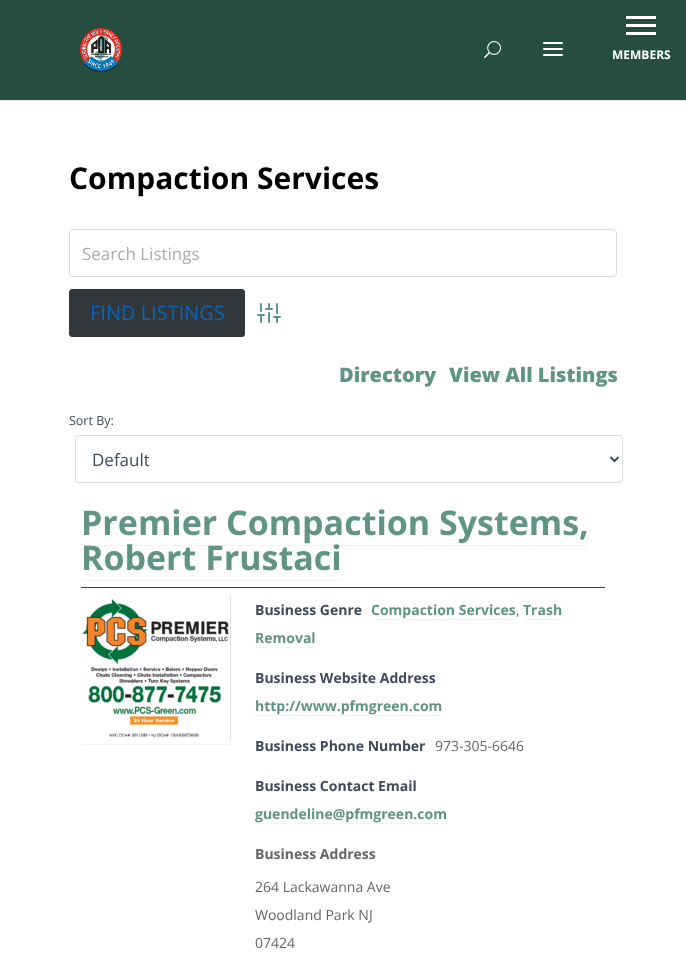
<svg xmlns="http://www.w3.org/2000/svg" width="686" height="959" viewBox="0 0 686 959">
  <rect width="100%" height="100%" fill="#fff"/>
  <path d="M0 0h686v100H0z" fill="#254e40"/>
  <path d="M626 24h30v3H626z" fill="#fff"/>
  <path d="M626 16h30v3H626z" fill="#fff"/>
  <path d="M626 32h30v3H626z" fill="#fff"/>
  <path d="M0 100h686v1H0z" fill="#e6e6e6"/>
  <image x="80" y="28" width="42" height="44" href="img/1.png"/>
  <image x="484" y="41" width="17" height="18" href="img/2.png"/>
  <image x="543" y="42" width="20" height="14" href="img/3.png"/>
  <rect x="69.5" y="229.5" width="547" height="47" rx="3.5" fill="none" stroke="#d9dbde"/>
  <rect x="69.5" y="289.5" width="175" height="47" rx="2.5" fill="#32373c" stroke="#32373c"/>
  <image x="257" y="303" width="24" height="20" href="img/4.png"/>
  <rect x="75.5" y="435.5" width="547" height="47" rx="3.5" fill="none" stroke="#d9dbde"/>
  <path d="M610.5 457L614.5 461L618.5 457" fill="none" stroke="#3f4b5b" stroke-width="2"/>
  <path d="M81 587h524v1H81z" fill="#044f8d"/>
  <path d="M81 545h507v1H81z" fill="#f3f3f3"/>
  <path d="M81 580h260v1H81z" fill="#f3f3f3"/>
  <image x="82" y="596" width="149" height="144" href="img/5.png"/>
  <path d="M81 744h150v1H81z" fill="#f3f3f3"/>
  <path d="M371 619h145v1H371z" fill="#f3f3f3"/>
  <path d="M523 619h39v1H523z" fill="#f3f3f3"/>
  <path d="M255 647h60v1H255z" fill="#f3f3f3"/>
  <path d="M255 715h187v1H255z" fill="#f3f3f3"/>
  <path d="M255 823h192v1H255z" fill="#f3f3f3"/>
  <text x="612" y="59" font-family="Open Sans" font-size="12" font-weight="bold" fill="#fff">MEMBERS</text>
  <text x="69" y="189" font-family="Open Sans" font-size="30" font-weight="bold" fill="#000">Compaction Services</text>
  <text x="82" y="260" font-family="Open Sans" font-size="17" fill="#acacac">Search Listings</text>
  <text x="90" y="320" font-family="Open Sans" font-size="20" fill="#0964b5">FIND LISTINGS</text>
  <g font-family="Open Sans" font-size="20" font-weight="800" fill="#609485">
    <text x="339" y="382">Directory</text>
    <text x="449" y="382">View All Listings</text>
  </g>
  <text x="69" y="425" font-family="Open Sans" font-size="12.5" fill="#3f4b5b">Sort By:</text>
  <text x="92" y="466" font-family="Open Sans" font-size="17" fill="#3f4b5b">Default</text>
  <g font-family="Open Sans" font-size="34" font-weight="bold" fill="#609485">
    <text x="81" y="535">Premier Compaction Systems,</text>
    <text x="81" y="570">Robert Frustaci</text>
  </g>
  <text x="255" y="615" font-family="Open Sans" font-size="14" font-weight="bold" fill="#3f4b5b">Business Genre</text>
  <text x="371" y="615" font-family="Open Sans" font-size="14" font-weight="bold" fill="#609485">Compaction Services</text>
  <text x="516" y="615" font-family="Open Sans" font-size="14" fill="#666">,</text>
  <g font-family="Open Sans" font-size="14" font-weight="bold" fill="#609485">
    <text x="523" y="615">Trash</text>
    <text x="255" y="643">Removal</text>
  </g>
  <text x="255" y="683" font-family="Open Sans" font-size="14" font-weight="bold" fill="#3f4b5b">Business Website Address</text>
  <text x="255" y="711" font-family="Open Sans" font-size="14" font-weight="bold" fill="#609485">http://www.pfmgreen.com</text>
  <text x="255" y="751" font-family="Open Sans" font-size="14" font-weight="bold" fill="#3f4b5b">Business Phone Number</text>
  <text x="435" y="751" font-family="Open Sans" font-size="14" fill="#666">973-305-6646</text>
  <text x="255" y="791" font-family="Open Sans" font-size="14" font-weight="bold" fill="#3f4b5b">Business Contact Email</text>
  <text x="255" y="819" font-family="Open Sans" font-size="14" font-weight="bold" fill="#609485">guendeline@pfmgreen.com</text>
  <text x="255" y="859" font-family="Open Sans" font-size="14" font-weight="bold" fill="#666">Business Address</text>
  <g font-family="Open Sans" font-size="14" fill="#666">
    <text x="255" y="892">264 Lackawanna Ave</text>
    <text x="255" y="920">Woodland Park NJ</text>
    <text x="255" y="948">07424</text>
  </g>
</svg>
